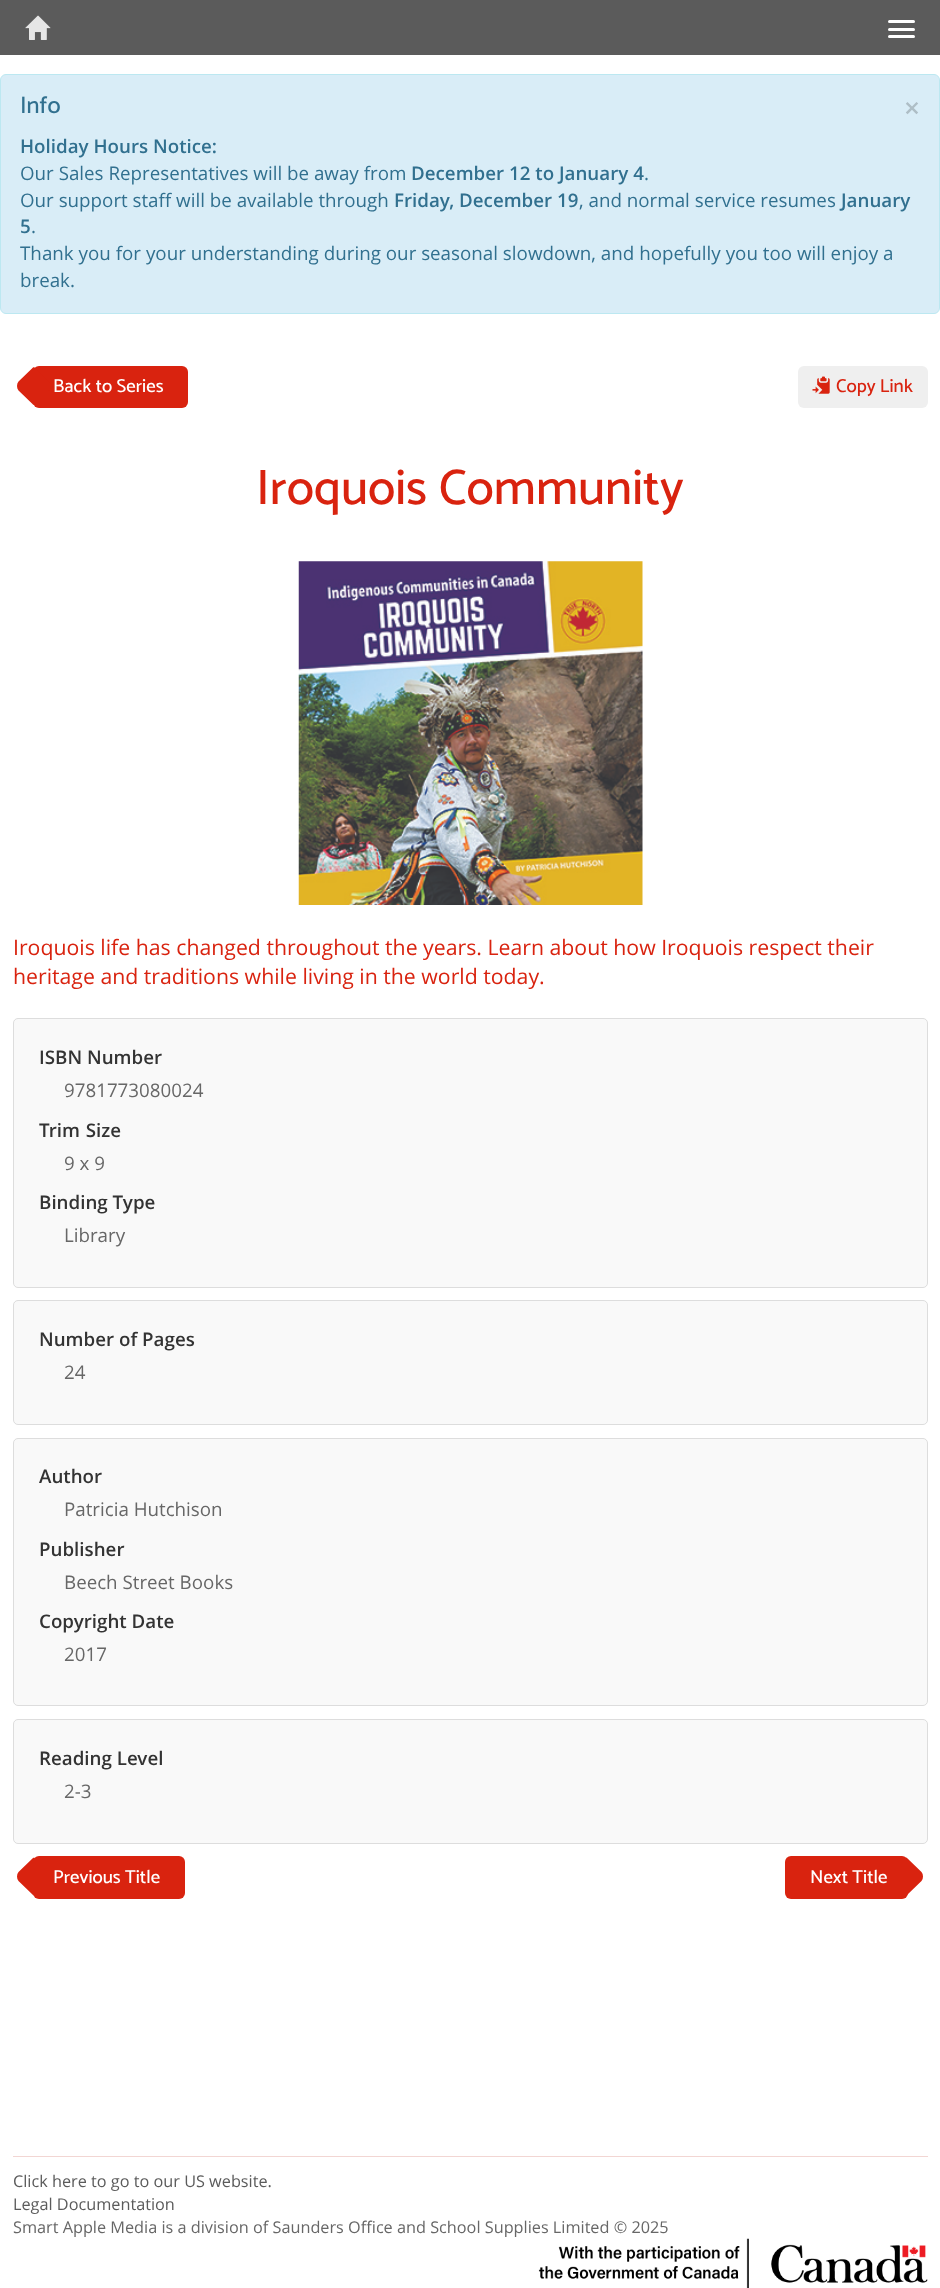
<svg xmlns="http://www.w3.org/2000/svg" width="940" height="2288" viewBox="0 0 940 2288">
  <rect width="100%" height="100%" fill="#fff"/>
  <path d="M0 0h940v55H0z" fill="#5b5b5b"/>
  <image x="25" y="15" width="26" height="25" href="img/1.png"/>
  <rect x="888" y="20" width="27" height="3" rx="1.5" fill="#fff"/>
  <rect x="888" y="28" width="27" height="3" rx="1.5" fill="#fff"/>
  <rect x="888" y="35" width="27" height="3" rx="1.5" fill="#fff"/>
  <rect x="0.5" y="74.5" width="939" height="239" rx="5.5" fill="#d9edf7" stroke="#bce8f1"/>
  <rect x="33" y="366" width="155" height="42" rx="6" fill="#d9230f"/>
  <path d="M33 404.5L18.5 390.5C16.5 388 16.5 384 18.5 381.5L33 367.5C33.5 367 34 367 34.5 367.5L52.5 385.5C53 386 53 386.5 52.5 387L34.5 404.5C34 405 33.5 405 33 404.5Z" fill="#d9230f"/>
  <rect x="798" y="366" width="130" height="42" rx="6" fill="#efefef"/>
  <image x="812" y="376" width="18" height="18" href="img/2.png"/>
  <image x="298" y="561" width="345" height="344" href="img/3.png"/>
  <rect x="13.5" y="1018.5" width="914" height="269" rx="4.5" fill="#f9f9f9" stroke="#ddd"/>
  <rect x="13.5" y="1300.5" width="914" height="124" rx="4.5" fill="#f9f9f9" stroke="#ddd"/>
  <rect x="13.5" y="1438.5" width="914" height="267" rx="4.5" fill="#f9f9f9" stroke="#ddd"/>
  <rect x="13.5" y="1719.5" width="914" height="124" rx="4.5" fill="#f9f9f9" stroke="#ddd"/>
  <rect x="33" y="1856" width="152" height="43" rx="6" fill="#d9230f"/>
  <path d="M33 1895L18.5 1881C16.5 1878.5 16.5 1874.5 18.5 1872L33 1858C33.5 1857.5 34 1857.5 34.5 1858L52.5 1875.5C53 1876 53 1877 52.5 1877.5L34.5 1895C34 1895.5 33.5 1895.5 33 1895Z" fill="#d9230f"/>
  <rect x="785" y="1856" width="123" height="43" rx="6" fill="#d9230f"/>
  <path d="M907 1858L921.5 1872C923.5 1874.5 923.5 1878.5 921.5 1881L907 1895C906.5 1895.5 906 1895.5 905.5 1895L887.5 1877.5C887 1877 887 1876 887.5 1875.5L905.5 1858C906 1857.5 906.5 1857.5 907 1858Z" fill="#d9230f"/>
  <path d="M13 2156h915v1H13z" fill="#f2d6d3"/>
  <image x="538" y="2238" width="390" height="50" href="img/4.png"/>
  <text x="20" y="113" font-family="Catamaran" font-size="24" font-weight="500" fill="#31708f">Info</text>
  <text x="904" y="118" font-family="Open Sans" font-size="28" font-weight="600" fill="#aebec6">×</text>
  <text x="20" y="153" font-family="Open Sans" font-size="18.75" font-weight="600" fill="#31708f">Holiday Hours Notice:</text>
  <text x="20" y="180" font-family="Open Sans" font-size="18.75" fill="#31708f">Our Sales Representatives will be away from</text>
  <text x="411" y="180" font-family="Open Sans" font-size="18.75" font-weight="600" fill="#31708f">December 12 to January 4</text>
  <g font-family="Open Sans" font-size="18.75" fill="#31708f">
    <text x="644" y="180">.</text>
    <text x="20" y="207">Our support staff will be available through</text>
  </g>
  <text x="394" y="207" font-family="Open Sans" font-size="18.75" font-weight="600" fill="#31708f">Friday, December 19</text>
  <text x="579" y="207" font-family="Open Sans" font-size="18.75" fill="#31708f">, and normal service resumes</text>
  <g font-family="Open Sans" font-size="18.75" font-weight="600" fill="#31708f">
    <text x="841" y="207">January</text>
    <text x="20" y="233">5</text>
  </g>
  <g font-family="Open Sans" font-size="18.75" fill="#31708f">
    <text x="31" y="233">.</text>
    <text x="20" y="260">Thank you for your understanding during our seasonal slowdown, and hopefully you too will enjoy a</text>
    <text x="20" y="287">break.</text>
  </g>
  <text x="53" y="392" font-family="Catamaran" font-size="18.75" font-weight="500" fill="#fff">Back to Series</text>
  <text x="836" y="392" font-family="Catamaran" font-size="18.75" font-weight="500" fill="#d9230f">Copy Link</text>
  <text x="256" y="504" font-family="Catamaran" font-size="50" font-weight="500" fill="#d9230f">Iroquois Community</text>
  <g font-family="Open Sans" font-size="21.25" fill="#d9230f">
    <text x="13" y="955">Iroquois life has changed throughout the years. Learn about how Iroquois respect their</text>
    <text x="13" y="984">heritage and traditions while living in the world today.</text>
  </g>
  <text x="39" y="1064" font-family="Open Sans" font-size="18.75" font-weight="600" fill="#333">ISBN Number</text>
  <text x="64" y="1097" font-family="Open Sans" font-size="18.75" fill="#676767">9781773080024</text>
  <text x="39" y="1137" word-spacing="1" font-family="Open Sans" font-size="18.75" font-weight="600" fill="#333">Trim Size</text>
  <text x="64" y="1170" font-family="Open Sans" font-size="18.75" fill="#676767">9 x 9</text>
  <text x="39" y="1209" font-family="Open Sans" font-size="18.75" font-weight="600" fill="#333">Binding Type</text>
  <text x="64" y="1242" font-family="Open Sans" font-size="18.75" fill="#676767">Library</text>
  <text x="39" y="1346" font-family="Open Sans" font-size="18.75" font-weight="600" fill="#333">Number of Pages</text>
  <text x="64" y="1379" font-family="Open Sans" font-size="18.75" fill="#676767">24</text>
  <text x="39" y="1483" font-family="Open Sans" font-size="18.75" font-weight="600" fill="#333">Author</text>
  <text x="64" y="1516" font-family="Open Sans" font-size="18.75" fill="#676767">Patricia Hutchison</text>
  <text x="39" y="1556" font-family="Open Sans" font-size="18.75" font-weight="600" fill="#333">Publisher</text>
  <text x="64" y="1589" font-family="Open Sans" font-size="18.75" fill="#676767">Beech Street Books</text>
  <text x="39" y="1628" font-family="Open Sans" font-size="18.75" font-weight="600" fill="#333">Copyright Date</text>
  <text x="64" y="1661" font-family="Open Sans" font-size="18.75" fill="#676767">2017</text>
  <text x="39" y="1765" font-family="Open Sans" font-size="18.75" font-weight="600" fill="#333">Reading Level</text>
  <text x="64" y="1798" font-family="Open Sans" font-size="18.75" fill="#676767">2-3</text>
  <g font-family="Catamaran" font-size="18.75" font-weight="500" fill="#fff">
    <text x="53" y="1883">Previous Title</text>
    <text x="810" y="1883">Next Title</text>
  </g>
  <g font-family="Open Sans" font-size="16.25" fill="#5b5b5b">
    <text x="13" y="2187">Click here to go to our US website.</text>
    <text x="13" y="2210">Legal Documentation</text>
  </g>
  <text x="13" y="2233" font-family="Open Sans" font-size="16.25" fill="#676767">Smart Apple Media is a division of Saunders Office and School Supplies Limited © 2025</text>
</svg>
